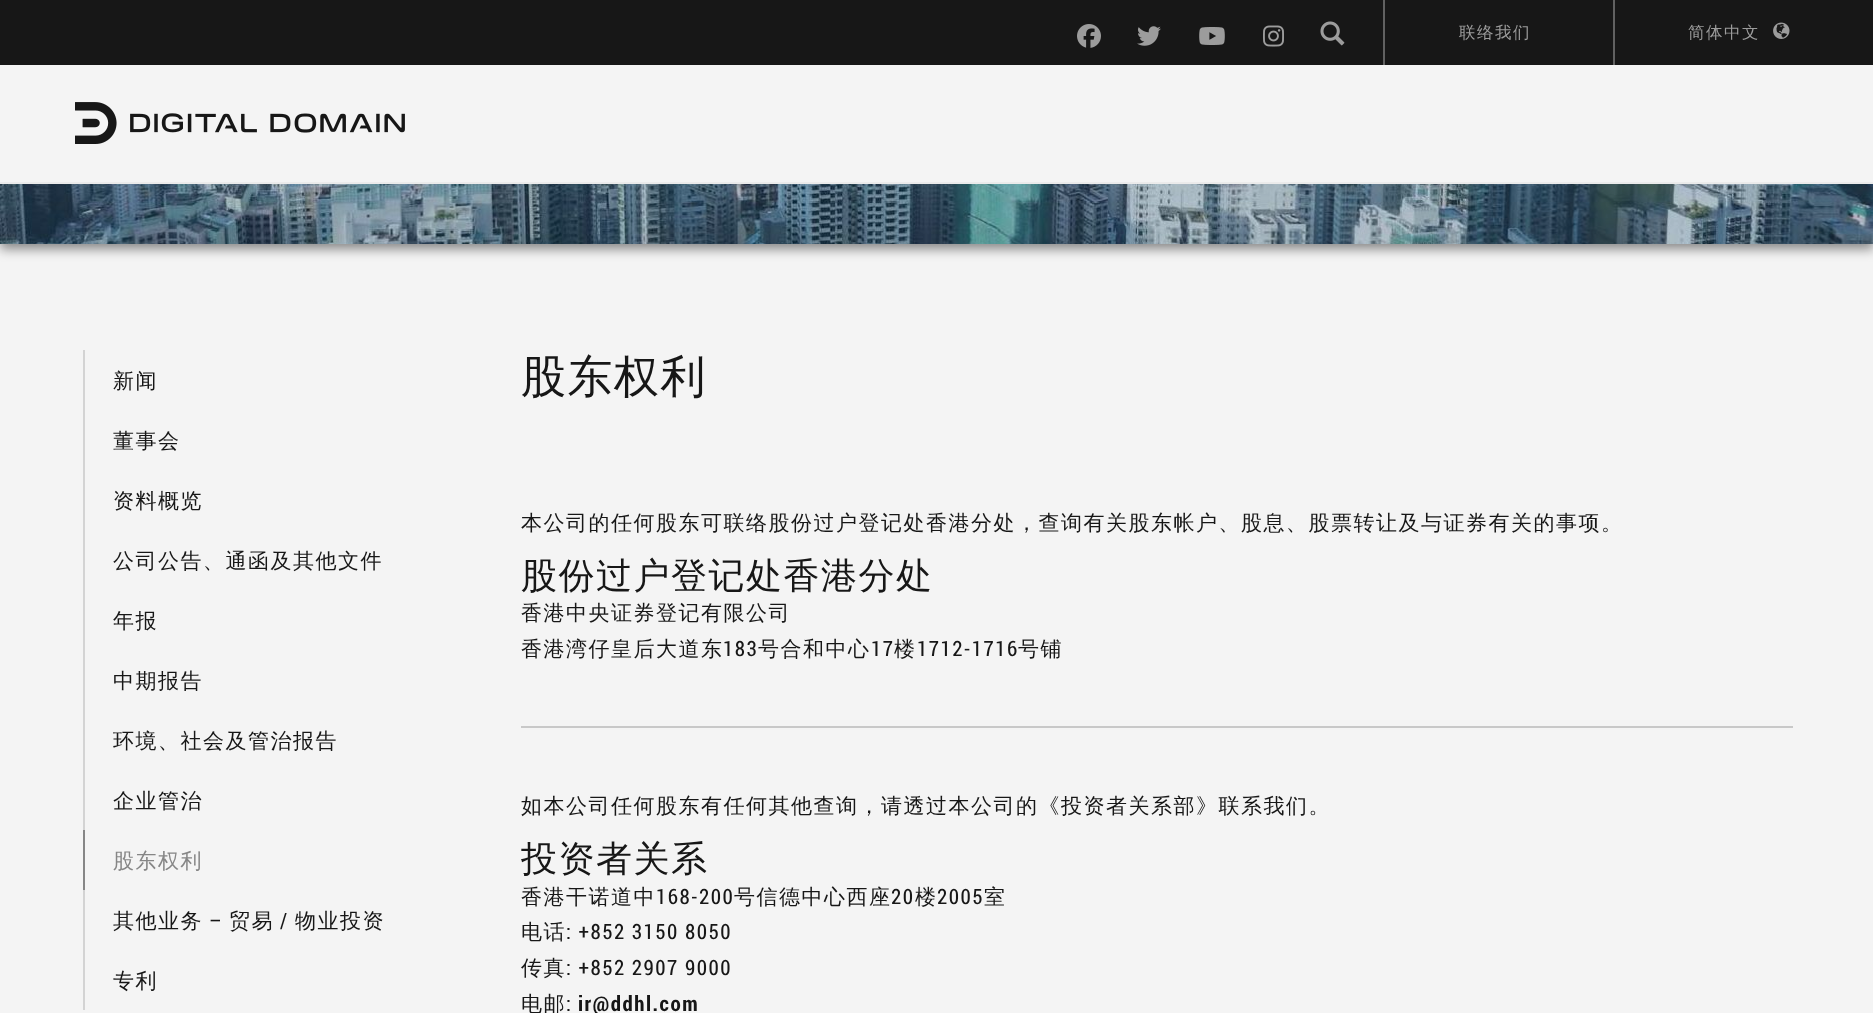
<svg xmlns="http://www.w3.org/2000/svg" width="1873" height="1013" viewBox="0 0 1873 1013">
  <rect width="100%" height="100%" fill="#f4f4f4"/>
  <path d="M0 -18h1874v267H0z" fill="#00000073" filter="blur(6px)"/>
  <path d="M0 0h1873v65H0z" fill="#171717"/>
  <image x="1077" y="24" width="24" height="24" href="img/1.png"/>
  <image x="1137" y="26" width="24" height="20" href="img/2.png"/>
  <image x="1199" y="27" width="26" height="18" href="img/3.png"/>
  <image x="1263" y="25" width="21" height="22" href="img/4.png"/>
  <image x="1320" y="21" width="25" height="25" href="img/5.png"/>
  <path d="M1383 0h2v65H1383z" fill="#616161"/>
  <path d="M1613 0h2v65H1613z" fill="#616161"/>
  <image x="1773" y="22" width="17" height="17" href="img/6.png"/>
  <path d="M0 65h1873v117H0z" fill="#f4f4f4"/>
  <path d="M0 182h1873v2H0z" fill="#ebebeb"/>
  <image x="75" y="102" width="330" height="42" href="img/7.png"/>
  <image x="0" y="184" width="1873" height="60" href="img/8.png"/>
  <path d="M83 350h2v480H83z" fill="#d3d3d3"/>
  <path d="M83 830h2v60H83z" fill="#868686"/>
  <path d="M83 890h2v120H83z" fill="#d3d3d3"/>
  <path d="M521 726h1272v2H521z" fill="#c8c8c8"/>
  <g font-family="WenQuanYi Zen Hei" font-size="16.5" font-weight="500" letter-spacing="1.5" fill="#9c9c9c">
    <text x="1459" y="38">联络我们</text>
    <text x="1688" y="38">简体中文</text>
  </g>
  <g font-family="WenQuanYi Zen Hei" font-size="21" font-weight="500" letter-spacing="1.5" fill="#171717">
    <text x="113" y="388">新闻</text>
    <text x="113" y="448">董事会</text>
    <text x="113" y="508">资料概览</text>
    <text x="113" y="568">公司公告、通函及其他文件</text>
    <text x="113" y="628">年报</text>
    <text x="113" y="688">中期报告</text>
    <text x="113" y="748">环境、社会及管治报告</text>
    <text x="113" y="808">企业管治</text>
  </g>
  <text x="113" y="868" font-family="WenQuanYi Zen Hei" font-size="21" font-weight="500" letter-spacing="1.5" fill="#868686">股东权利</text>
  <text x="113" y="928" font-family="WenQuanYi Zen Hei" font-size="21" font-weight="500" letter-spacing="1.5" fill="#171717">其他业务</text>
  <text x="209" y="928" font-family="Roboto Condensed" font-size="21" letter-spacing="1.5" fill="#171717">–</text>
  <text x="229" y="928" font-family="WenQuanYi Zen Hei" font-size="21" font-weight="500" letter-spacing="1.5" fill="#171717">贸易</text>
  <text x="280" y="928" font-family="Roboto Condensed" font-size="21" letter-spacing="1.5" fill="#171717">/</text>
  <g font-family="WenQuanYi Zen Hei" font-size="21" font-weight="500" letter-spacing="1.5" fill="#171717">
    <text x="295" y="928">物业投资</text>
    <text x="113" y="988">专利</text>
  </g>
  <text x="521" y="392" font-family="WenQuanYi Zen Hei" font-size="45" font-weight="500" letter-spacing="1.5" fill="#171717">股东权利</text>
  <text x="521" y="530" font-family="WenQuanYi Zen Hei" font-size="21" font-weight="500" letter-spacing="1.5" fill="#171717">本公司的任何股东可联络股份过户登记处香港分处，查询有关股东帐户、股息、股票转让及与证券有关的事项。</text>
  <text x="521" y="588" font-family="WenQuanYi Zen Hei" font-size="36" font-weight="500" letter-spacing="1.5" fill="#171717">股份过户登记处香港分处</text>
  <g font-family="WenQuanYi Zen Hei" font-size="21" font-weight="500" letter-spacing="1.5" fill="#171717">
    <text x="521" y="620">香港中央证券登记有限公司</text>
    <text x="521" y="656">香港湾仔皇后大道东</text>
  </g>
  <text x="723" y="656" font-family="Roboto Condensed" font-size="21" letter-spacing="1.5" fill="#171717">183</text>
  <text x="758" y="656" font-family="WenQuanYi Zen Hei" font-size="21" font-weight="500" letter-spacing="1.5" fill="#171717">号合和中心</text>
  <text x="871" y="656" font-family="Roboto Condensed" font-size="21" letter-spacing="1.5" fill="#171717">17</text>
  <text x="894" y="656" font-family="WenQuanYi Zen Hei" font-size="21" font-weight="500" letter-spacing="1.5" fill="#171717">楼</text>
  <text x="917" y="656" font-family="Roboto Condensed" font-size="21" letter-spacing="1.5" fill="#171717">1712-1716</text>
  <g font-family="WenQuanYi Zen Hei" font-size="21" font-weight="500" letter-spacing="1.5" fill="#171717">
    <text x="1018" y="656">号铺</text>
    <text x="521" y="813">如本公司任何股东有任何其他查询，请透过本公司的《投资者关系部》联系我们。</text>
  </g>
  <text x="521" y="871" font-family="WenQuanYi Zen Hei" font-size="36" font-weight="500" letter-spacing="1.5" fill="#171717">投资者关系</text>
  <text x="521" y="904" font-family="WenQuanYi Zen Hei" font-size="21" font-weight="500" letter-spacing="1.5" fill="#171717">香港干诺道中</text>
  <text x="656" y="904" font-family="Roboto Condensed" font-size="21" letter-spacing="1.5" fill="#171717">168-200</text>
  <text x="734" y="904" font-family="WenQuanYi Zen Hei" font-size="21" font-weight="500" letter-spacing="1.5" fill="#171717">号信德中心西座</text>
  <text x="891" y="904" font-family="Roboto Condensed" font-size="21" letter-spacing="1.5" fill="#171717">20</text>
  <text x="915" y="904" font-family="WenQuanYi Zen Hei" font-size="21" font-weight="500" letter-spacing="1.5" fill="#171717">楼</text>
  <text x="937" y="904" font-family="Roboto Condensed" font-size="21" letter-spacing="1.5" fill="#171717">2005</text>
  <g font-family="WenQuanYi Zen Hei" font-size="21" font-weight="500" letter-spacing="1.5" fill="#171717">
    <text x="984" y="904">室</text>
    <text x="521" y="939">电话</text>
  </g>
  <text x="566" y="939" font-family="Roboto Condensed" font-size="21" letter-spacing="1.5" fill="#171717">: +852 3150 8050</text>
  <text x="521" y="975" font-family="WenQuanYi Zen Hei" font-size="21" font-weight="500" letter-spacing="1.5" fill="#171717">传真</text>
  <text x="566" y="975" font-family="Roboto Condensed" font-size="21" letter-spacing="1.5" fill="#171717">: +852 2907 9000</text>
  <text x="521" y="1011" font-family="WenQuanYi Zen Hei" font-size="21" font-weight="500" letter-spacing="1.5" fill="#171717">电邮</text>
  <text x="566" y="1011" font-family="Roboto Condensed" font-size="21" letter-spacing="1.5" fill="#171717">:</text>
  <text x="578" y="1011" font-family="Roboto Condensed" font-size="21" font-weight="bold" letter-spacing="1.5" fill="#171717">ir@ddhl.com</text>
</svg>
